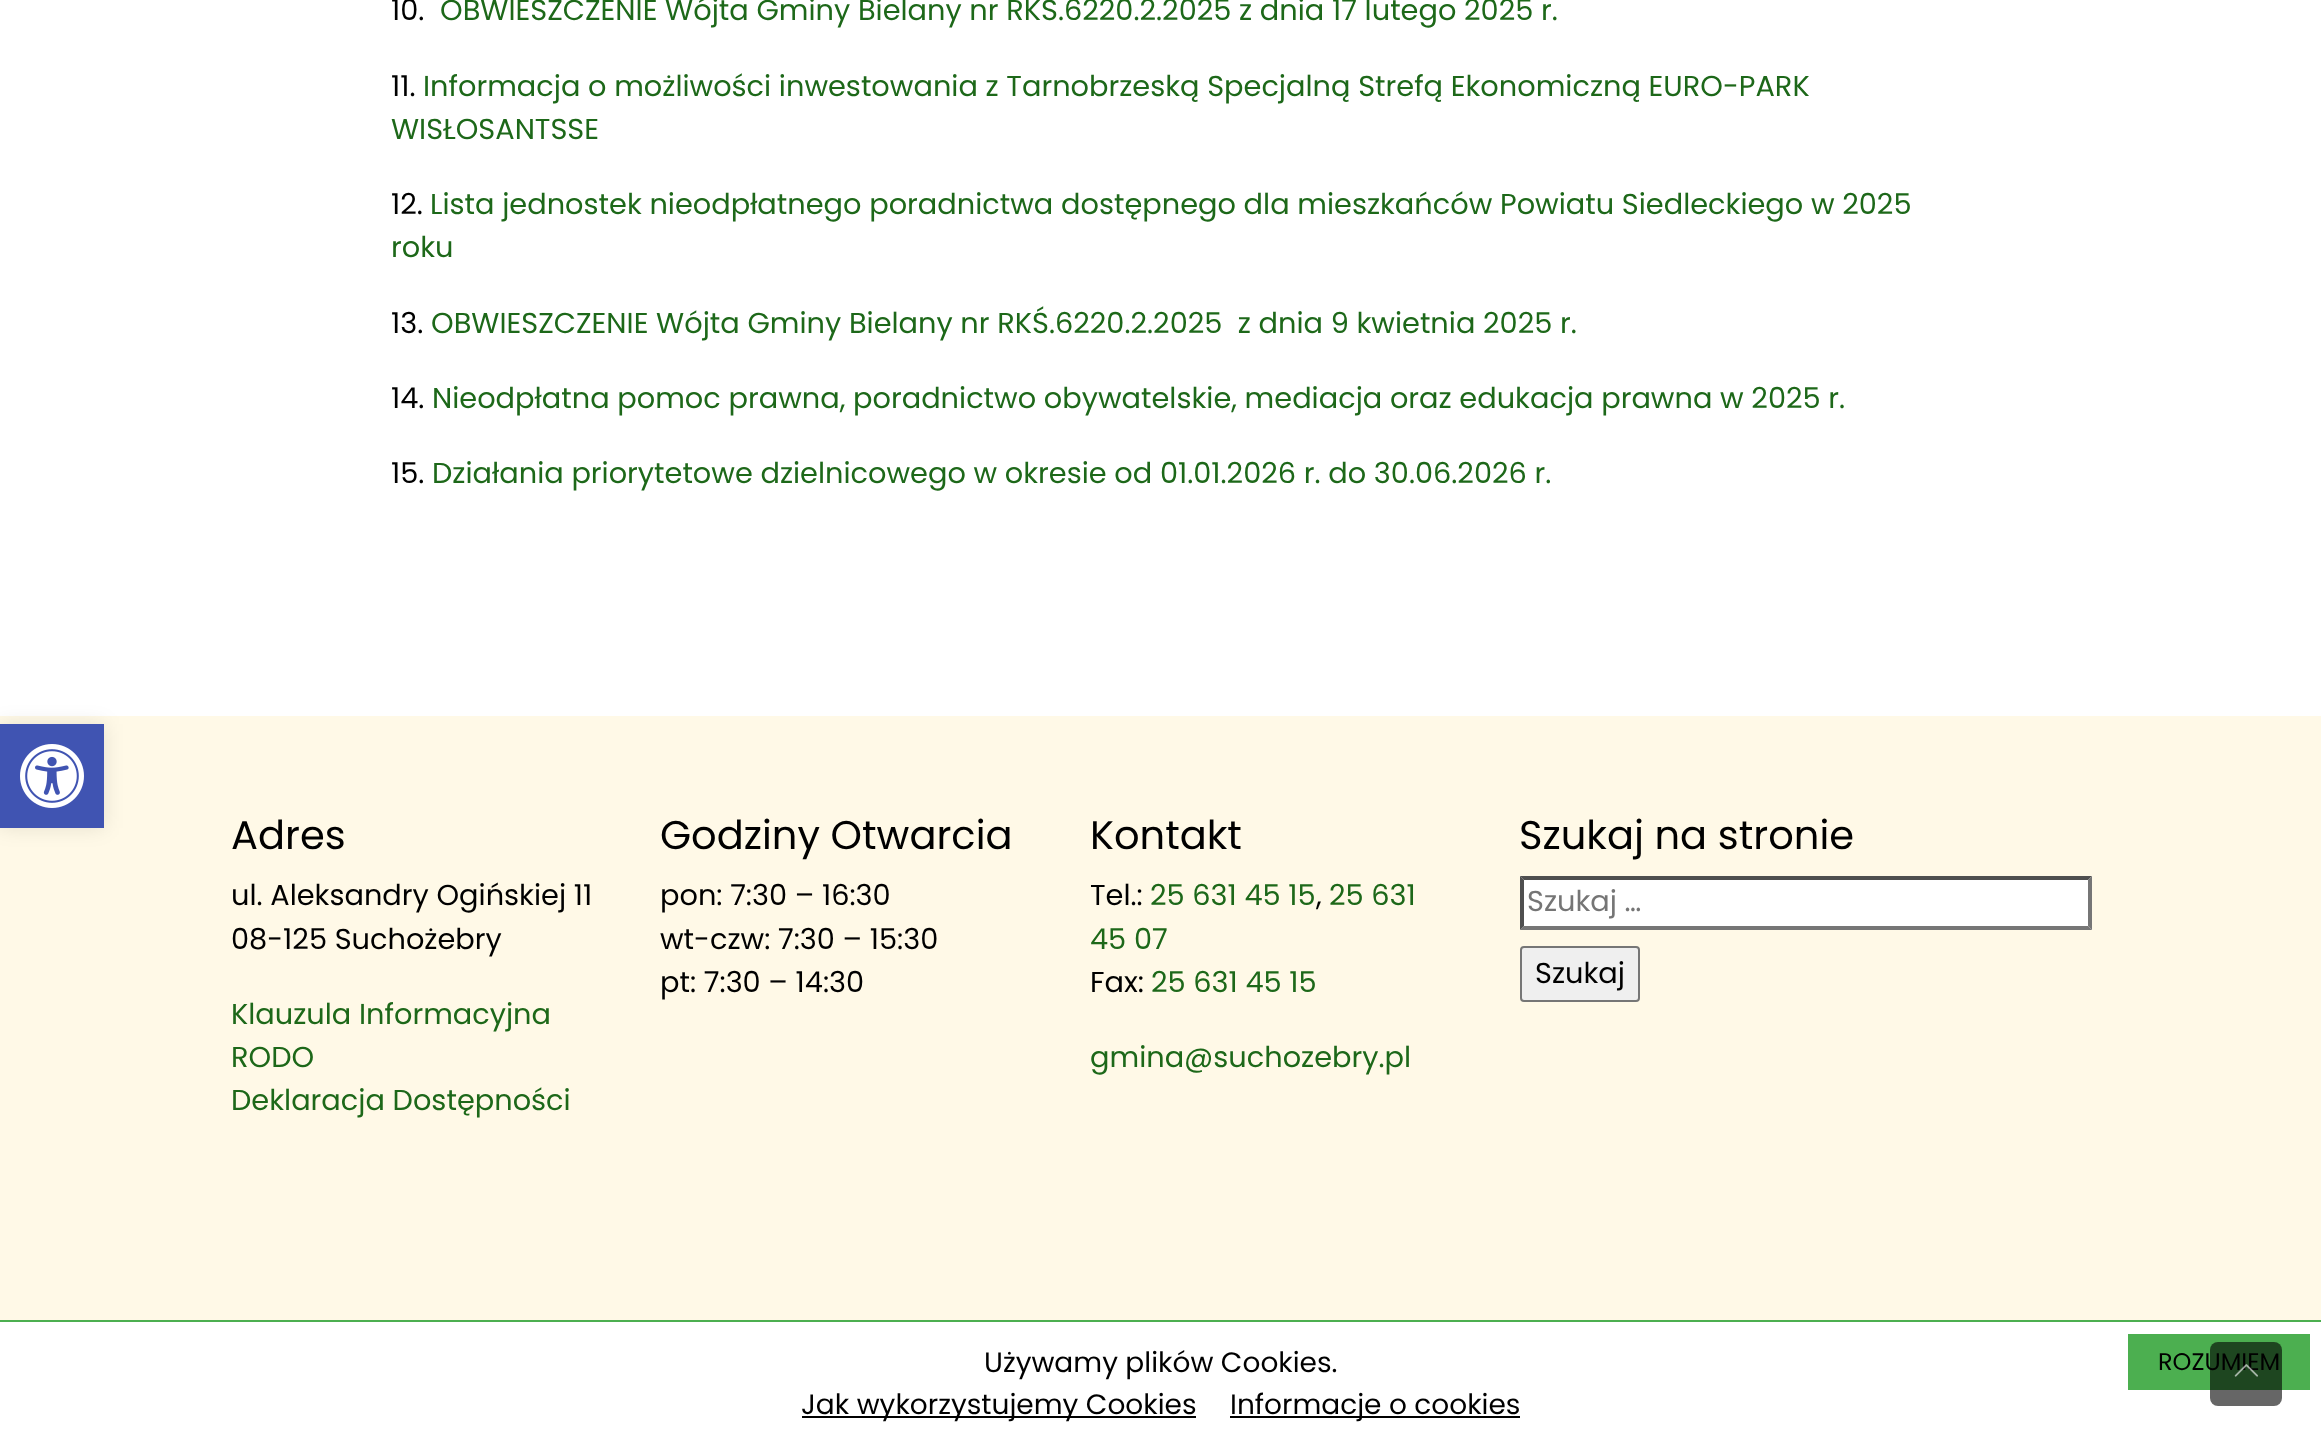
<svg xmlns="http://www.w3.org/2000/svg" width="2321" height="1445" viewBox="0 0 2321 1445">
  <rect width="100%" height="100%" fill="#fff"/>
  <path d="M0 716h2321v604H0z" fill="#fff9e7"/>
  <path d="M0 724h104v104H0z" fill="#0000001a" filter="blur(10px)"/>
  <path d="M0 724h104v104H0z" fill="#4054b2"/>
  <image x="20" y="744" width="64" height="64" href="img/1.png"/>
  <path d="M1520 876h572v54H1520z" fill="#fff"/>
  <path d="M1520 876H2092L2088 880H1524Z" fill="#4f4f4f"/>
  <path d="M2092 876V930L2088 926V880Z" fill="#767676"/>
  <path d="M2092 930H1520L1524 926H2088Z" fill="#767676"/>
  <path d="M1520 930V876L1524 880V926Z" fill="#4f4f4f"/>
  <rect x="1521" y="947" width="118" height="54" rx="3" fill="#efefef" stroke="#767676" stroke-width="2"/>
  <path d="M0 1320h2321v2H0z" fill="#4caf50"/>
  <path d="M2128 1334h182v56H2128z" fill="#4caf50"/>
  <path d="M802 1416h394v2H802z" fill="#000"/>
  <path d="M1230 1416h290v2H1230z" fill="#000"/>
  <text x="391" y="20" font-family="Poppins" font-size="28.8" fill="#000">10.</text>
  <text x="440" y="20" font-family="Poppins" font-size="28.8" fill="#1d6819">OBWIESZCZENIE Wójta Gminy Bielany nr RKŚ.6220.2.2025 z dnia 17 lutego 2025 r.</text>
  <text x="391" y="96" font-family="Poppins" font-size="28.8" fill="#000">11.</text>
  <g font-family="Poppins" font-size="28.8" fill="#1d6819">
    <text x="423" y="96">Informacja o możliwości inwestowania z Tarnobrzeską Specjalną Strefą Ekonomiczną EURO-PARK</text>
    <text x="391" y="139">WISŁOSANTSSE</text>
  </g>
  <text x="391" y="214" font-family="Poppins" font-size="28.8" fill="#000">12.</text>
  <g font-family="Poppins" font-size="28.8" fill="#1d6819">
    <text x="430" y="214">Lista jednostek nieodpłatnego poradnictwa dostępnego dla mieszkańców Powiatu Siedleckiego w 2025</text>
    <text x="391" y="257">roku</text>
  </g>
  <text x="391" y="333" font-family="Poppins" font-size="28.8" fill="#000">13.</text>
  <text x="431" y="333" font-family="Poppins" font-size="28.8" fill="#1d6819" xml:space="preserve">OBWIESZCZENIE Wójta Gminy Bielany nr RKŚ.6220.2.2025  z dnia 9 kwietnia 2025 r.</text>
  <text x="391" y="408" font-family="Poppins" font-size="28.8" fill="#000">14.</text>
  <text x="432" y="408" font-family="Poppins" font-size="28.8" fill="#1d6819">Nieodpłatna pomoc prawna, poradnictwo obywatelskie, mediacja oraz edukacja prawna w 2025 r.</text>
  <text x="391" y="483" font-family="Poppins" font-size="28.8" fill="#000">15.</text>
  <text x="432" y="483" font-family="Poppins" font-size="28.8" fill="#1d6819">Działania priorytetowe dzielnicowego w okresie od 01.01.2026 r. do 30.06.2026 r.</text>
  <text x="231" y="849" font-family="Poppins" font-size="40" fill="#000">Adres</text>
  <g font-family="Poppins" font-size="28.8" fill="#000">
    <text x="231" y="905">ul. Aleksandry Ogińskiej 11</text>
    <text x="231" y="949">08-125 Suchożebry</text>
  </g>
  <g font-family="Poppins" font-size="28.8" fill="#1d6819">
    <text x="231" y="1024">Klauzula Informacyjna</text>
    <text x="231" y="1067">RODO</text>
    <text x="231" y="1110">Deklaracja Dostępności</text>
  </g>
  <text x="660" y="849" font-family="Poppins" font-size="40" fill="#000">Godziny Otwarcia</text>
  <g font-family="Poppins" font-size="28.8" fill="#000">
    <text x="660" y="905">pon: 7:30 – 16:30</text>
    <text x="660" y="949">wt-czw: 7:30 – 15:30</text>
    <text x="660" y="992">pt: 7:30 – 14:30</text>
  </g>
  <text x="1090" y="849" font-family="Poppins" font-size="40" fill="#000">Kontakt</text>
  <text x="1090" y="905" font-family="Poppins" font-size="28.8" fill="#000">Tel.:</text>
  <text x="1150" y="905" font-family="Poppins" font-size="28.8" fill="#1d6819">25 631 45 15</text>
  <text x="1316" y="905" font-family="Poppins" font-size="28.8" fill="#000">,</text>
  <g font-family="Poppins" font-size="28.8" fill="#1d6819">
    <text x="1329" y="905">25 631</text>
    <text x="1090" y="949">45 07</text>
  </g>
  <text x="1090" y="992" font-family="Poppins" font-size="28.8" fill="#000">Fax:</text>
  <g font-family="Poppins" font-size="28.8" fill="#1d6819">
    <text x="1151" y="992">25 631 45 15</text>
    <text x="1090" y="1067">gmina@suchozebry.pl</text>
  </g>
  <text x="1519" y="849" font-family="Poppins" font-size="40" fill="#000">Szukaj na stronie</text>
  <text x="1527" y="911" font-family="Poppins" font-size="28.8" fill="#757575">Szukaj …</text>
  <text x="1535" y="983" font-family="Poppins" font-size="28.8" fill="#000">Szukaj</text>
  <text x="984" y="1372" font-family="Poppins" font-size="28" fill="#000">Używamy plików Cookies.</text>
  <text x="2158" y="1370" font-family="Poppins" font-size="24" fill="#000">ROZUMIEM</text>
  <rect x="2210" y="1342" width="72" height="64" rx="8" fill="#00000099"/>
  <image x="2234" y="1364" width="24" height="13" href="img/2.png"/>
  <g font-family="Poppins" font-size="28" fill="#000">
    <text x="801" y="1414">Jak wykorzystujemy Cookies</text>
    <text x="1230" y="1414">Informacje o cookies</text>
  </g>
</svg>
